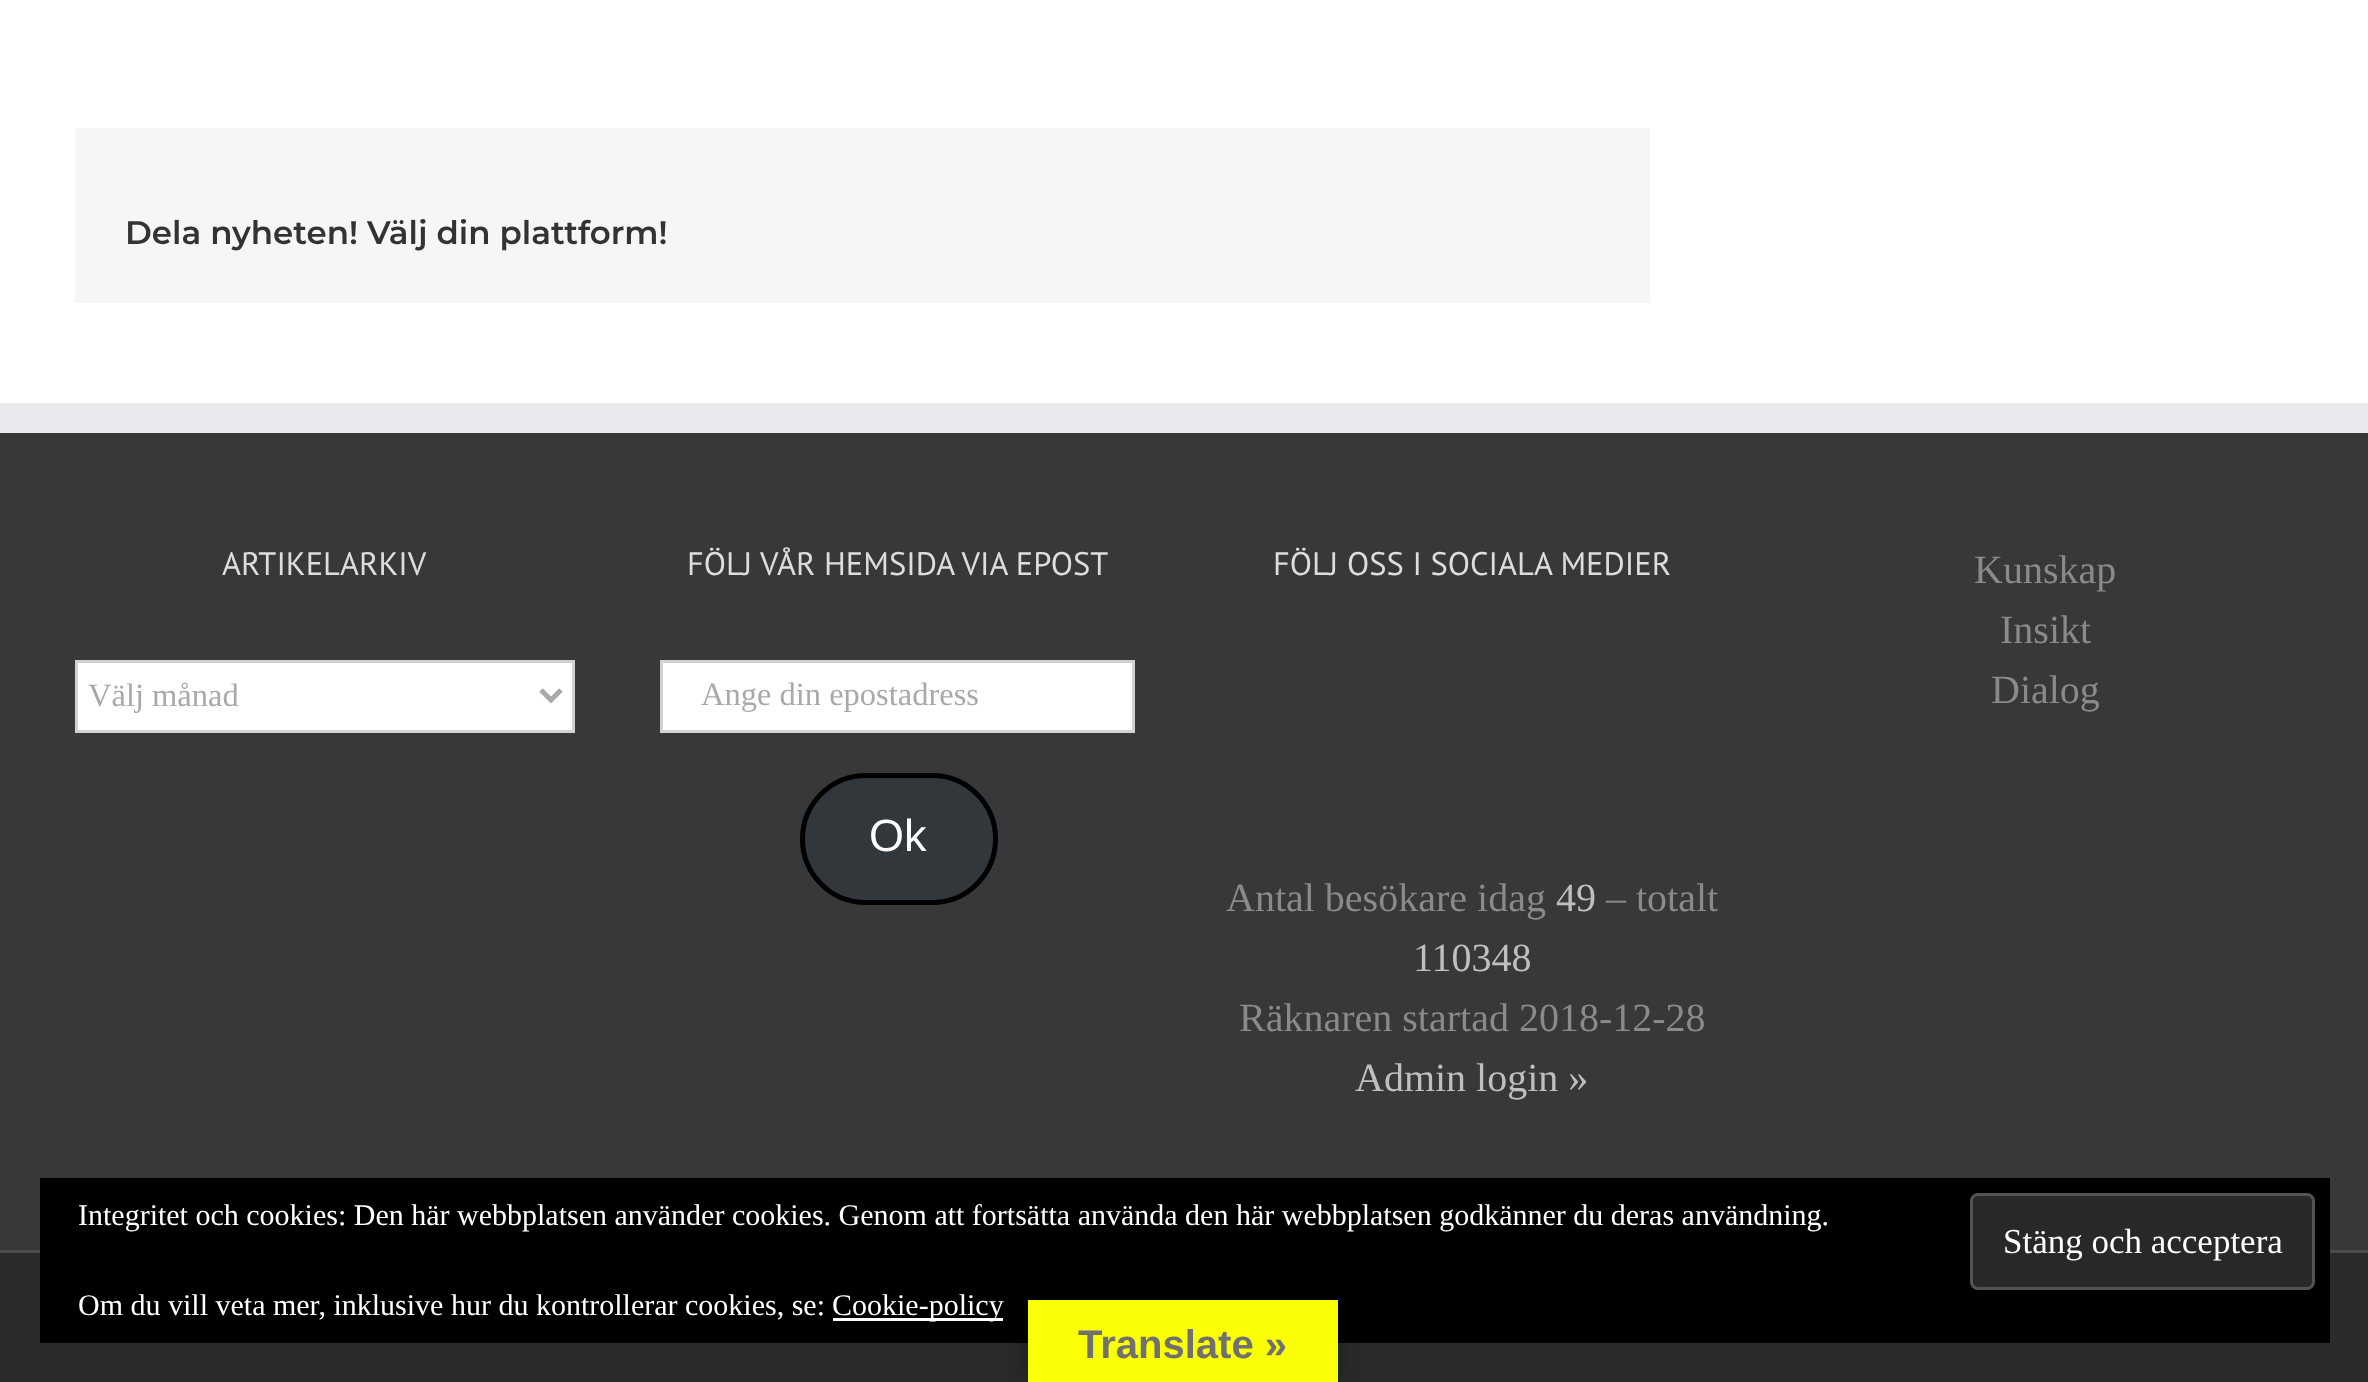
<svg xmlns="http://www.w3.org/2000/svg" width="2368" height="1382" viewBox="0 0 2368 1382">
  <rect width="100%" height="100%" fill="#fff"/>
  <path d="M75 128h1575v175H75z" fill="#f6f6f6"/>
  <path d="M0 433h2368v817H0z" fill="#363839"/>
  <path d="M0 403h2368v30H0z" fill="#e9eaee"/>
  <path d="M76.5 661.5h497v70H76.5z" fill="#fff" stroke="#d2d2d2" stroke-width="3"/>
  <path d="M541 690L551 700L561 690" fill="none" stroke="#aaa9a9" stroke-width="5"/>
  <path d="M661.5 661.5h472v70H661.5z" fill="#fff" stroke="#d2d2d2" stroke-width="3"/>
  <rect x="802.5" y="775.5" width="193" height="127" rx="63.5" fill="#32373c" stroke="#000" stroke-width="5"/>
  <path d="M0 1253h2368v129H0z" fill="#282a2b"/>
  <path d="M0 1250h2368v3H0z" fill="#4b4c4d"/>
  <path d="M40 1178h2290v165H40z" fill="#000"/>
  <rect x="1971.5" y="1194.5" width="342" height="94" rx="6.5" fill="#282828" stroke="#535353" stroke-width="3"/>
  <path d="M833 1318h170v3H833z" fill="#fff"/>
  <path d="M1028 1300h310v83H1028z" fill="#0000004d" filter="blur(11px)"/>
  <path d="M1028 1300h310v82H1028z" fill="#faff05"/>
  <text x="125" y="244" font-family="Montserrat" font-size="32.5" font-weight="600" fill="#333">Dela nyheten! Välj din plattform!</text>
  <text x="222" y="575" font-family="PT Sans" font-size="32.5" fill="#ddd">ARTIKELARKIV</text>
  <text x="88" y="706" font-family="Liberation Serif" font-size="32.5" fill="#aaa9a9">Välj månad</text>
  <text x="687" y="575" font-family="PT Sans" font-size="32.5" fill="#ddd">FÖLJ VÅR HEMSIDA VIA EPOST</text>
  <text x="701" y="705" font-family="Liberation Serif" font-size="32.5" fill="#aaa9a9">Ange din epostadress</text>
  <text x="869" y="851" font-family="Liberation Sans" font-size="45" fill="#fff">Ok</text>
  <text x="1273" y="575" font-family="PT Sans" font-size="32.5" fill="#ddd">FÖLJ OSS I SOCIALA MEDIER</text>
  <text x="1226" y="911" font-family="Liberation Serif" font-size="40" fill="#8c8989">Antal besökare idag</text>
  <text x="1556" y="911" font-family="Liberation Serif" font-size="40" fill="#bfbfbf">49</text>
  <text x="1606" y="911" font-family="Liberation Serif" font-size="40" fill="#8c8989">– totalt</text>
  <text x="1413" y="971" font-family="Liberation Serif" font-size="40" fill="#bfbfbf">110348</text>
  <text x="1239" y="1031" font-family="Liberation Serif" font-size="40" fill="#8c8989">Räknaren startad 2018-12-28</text>
  <text x="1355" y="1091" font-family="Liberation Serif" font-size="40" fill="#bfbfbf">Admin login »</text>
  <g font-family="Liberation Serif" font-size="40" fill="#8c8989">
    <text x="1974" y="583">Kunskap</text>
    <text x="2000" y="643">Insikt</text>
    <text x="1991" y="703">Dialog</text>
  </g>
  <text x="78" y="1225" font-family="Liberation Serif" font-size="30" fill="#fff">Integritet och cookies: Den här webbplatsen använder cookies. Genom att fortsätta använda den här webbplatsen godkänner du deras användning.</text>
  <text x="2003" y="1253" font-family="Liberation Serif" font-size="35" fill="#fff">Stäng och acceptera</text>
  <g font-family="Liberation Serif" font-size="30" fill="#fff">
    <text x="78" y="1315">Om du vill veta mer, inklusive hur du kontrollerar cookies, se:</text>
    <text x="832" y="1315">Cookie-policy</text>
  </g>
  <text x="1078" y="1358" font-family="Liberation Sans" font-size="40" font-weight="bold" fill="#707070">Translate »</text>
</svg>
